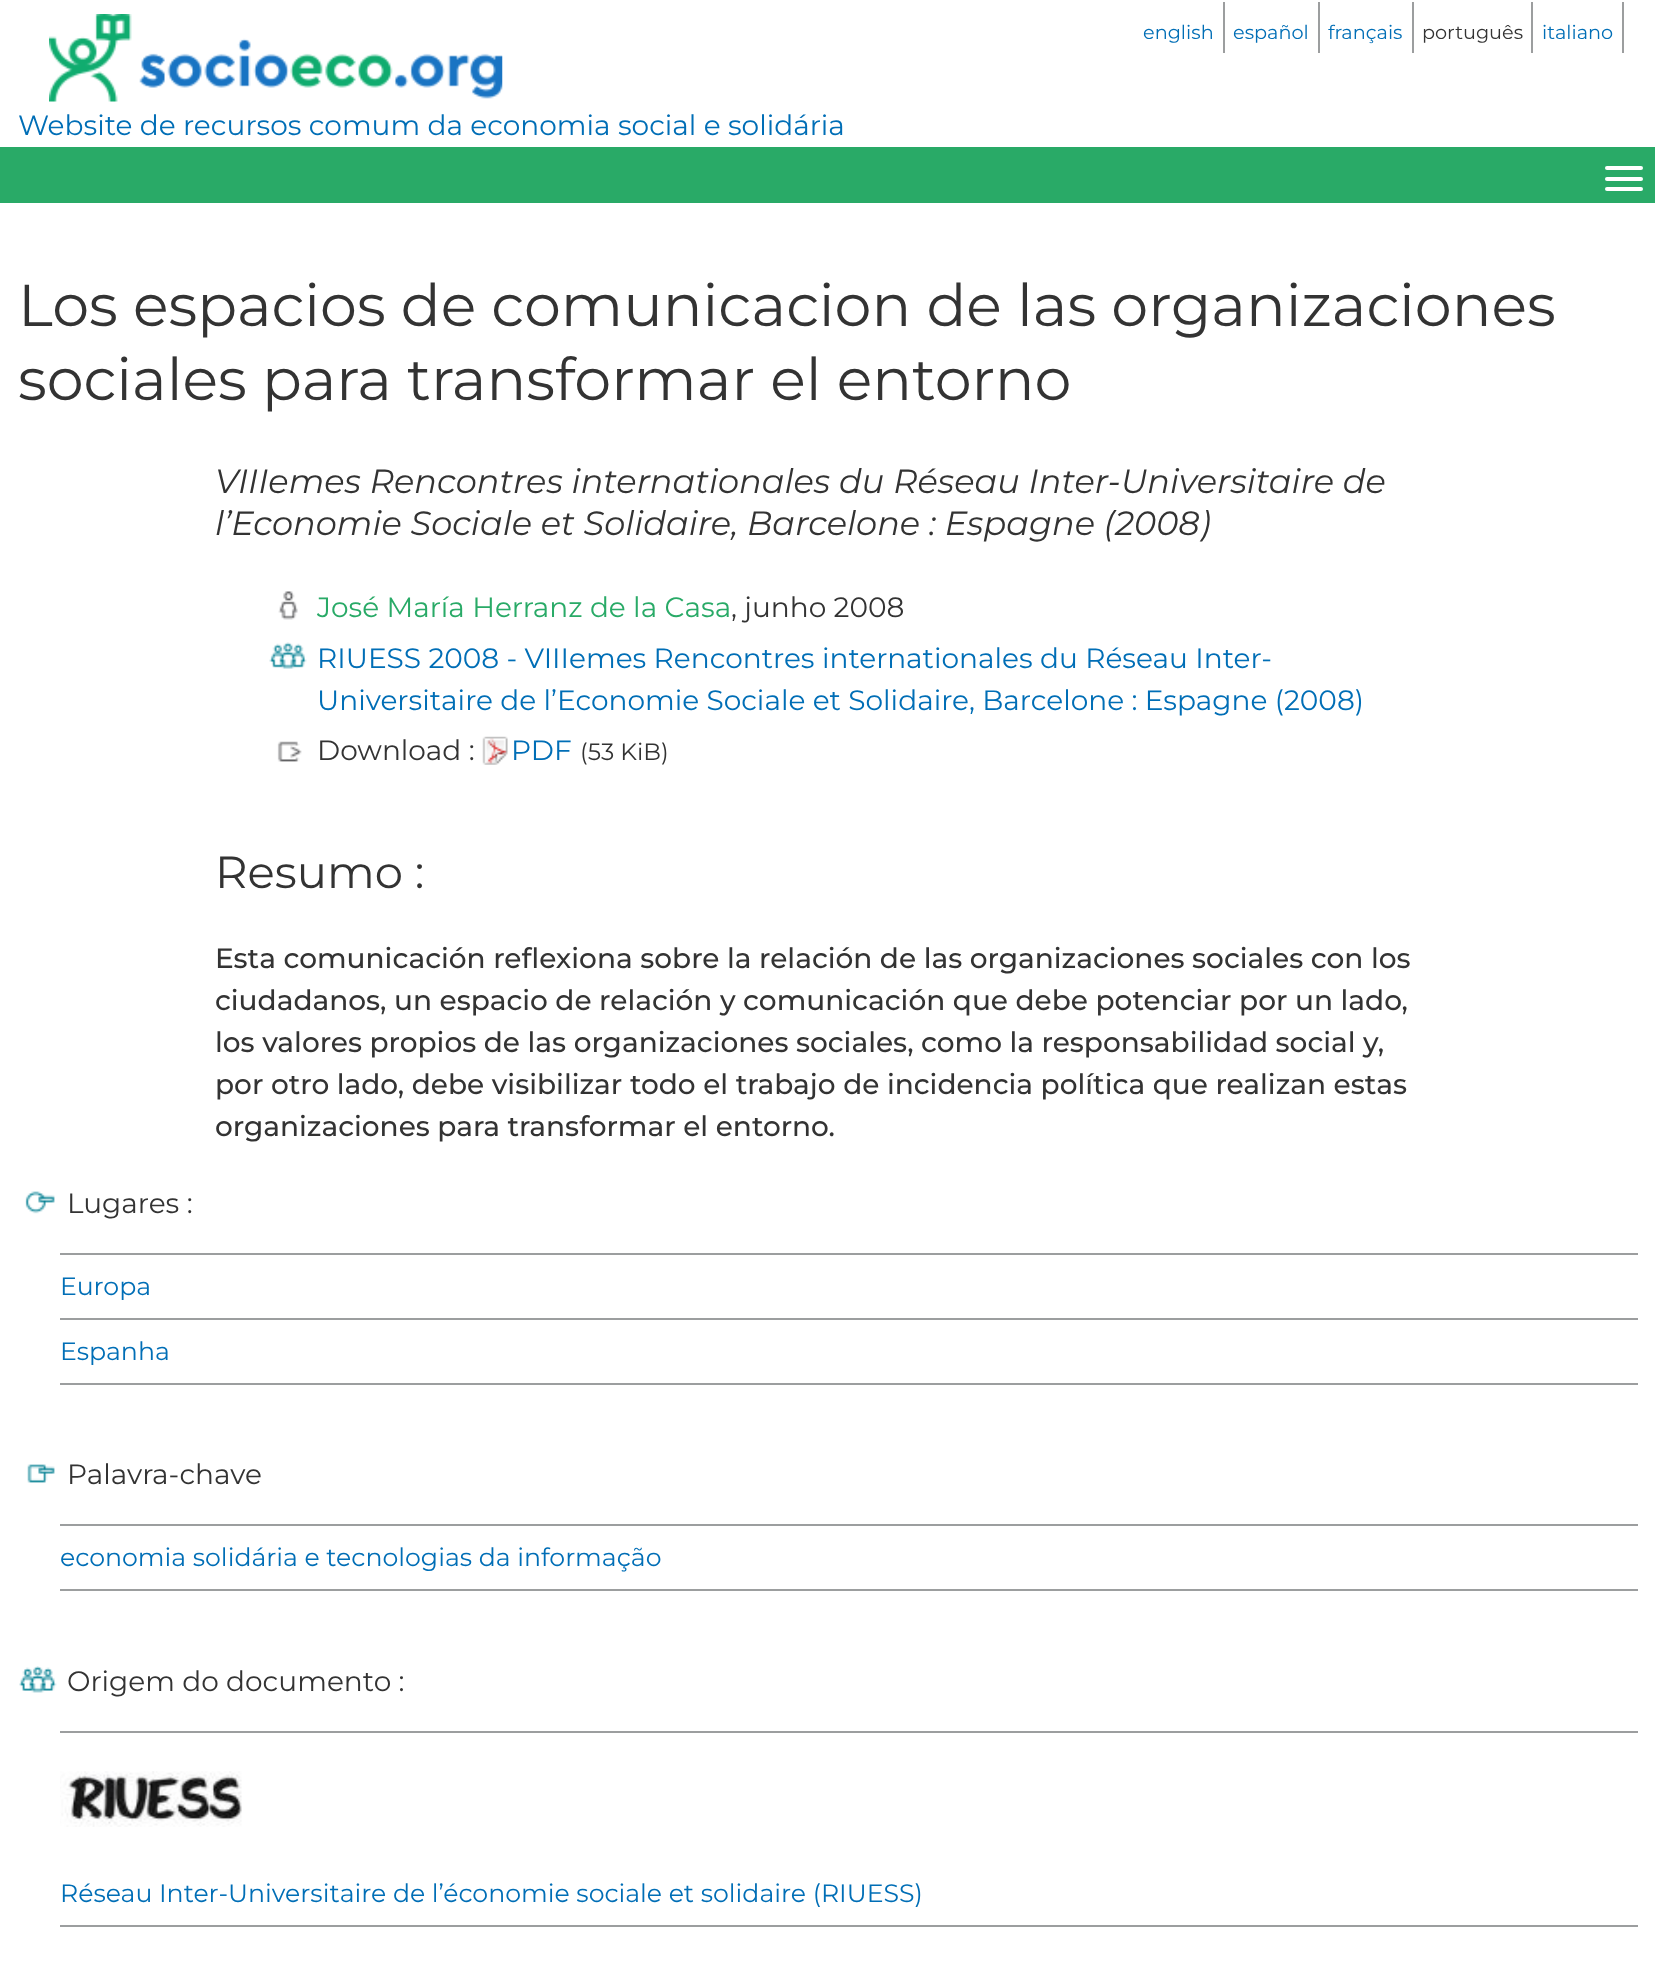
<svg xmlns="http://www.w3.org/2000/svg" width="1655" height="1961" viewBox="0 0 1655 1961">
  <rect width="100%" height="100%" fill="#fff"/>
  <path d="M1223 2h2v51H1223z" fill="#9c9e9f"/>
  <path d="M1318 2h2v51H1318z" fill="#9c9e9f"/>
  <path d="M1412 2h2v51H1412z" fill="#9c9e9f"/>
  <path d="M1531 2h2v51H1531z" fill="#9c9e9f"/>
  <path d="M1622 2h2v51H1622z" fill="#9c9e9f"/>
  <image x="49" y="14" width="454" height="88" href="img/1.png"/>
  <path d="M0 147h1655v56H0z" fill="#29aa67"/>
  <rect x="1605" y="166" width="38" height="4" rx="2" fill="#fff"/>
  <rect x="1605" y="177" width="38" height="4" rx="2" fill="#fff"/>
  <rect x="1605" y="187" width="38" height="4" rx="2" fill="#fff"/>
  <image x="278" y="591" width="20" height="29" href="img/2.png"/>
  <image x="269" y="642" width="38" height="27" href="img/3.png"/>
  <image x="277" y="741" width="25" height="21" href="img/4.png"/>
  <image x="482" y="736" width="26" height="29" href="img/5.png"/>
  <image x="25" y="1191" width="30" height="23" href="img/6.png"/>
  <path d="M60 1253h1578v2H60z" fill="#9c9e9f"/>
  <path d="M60 1318h1578v2H60z" fill="#9c9e9f"/>
  <path d="M60 1383h1578v2H60z" fill="#9c9e9f"/>
  <image x="27" y="1464" width="28" height="19" href="img/7.png"/>
  <path d="M60 1524h1578v2H60z" fill="#9c9e9f"/>
  <path d="M60 1589h1578v2H60z" fill="#9c9e9f"/>
  <image x="19" y="1666" width="38" height="27" href="img/8.png"/>
  <path d="M60 1731h1578v2H60z" fill="#9c9e9f"/>
  <path d="M60 1925h1578v2H60z" fill="#9c9e9f"/>
  <image x="60" y="1771" width="182" height="56" href="img/9.png"/>
  <g font-family="Montserrat" font-size="19.25" fill="#006eb6">
    <text x="1143" y="39">english</text>
    <text x="1233" y="39">español</text>
    <text x="1328" y="39">français</text>
  </g>
  <text x="1422" y="39" font-family="Montserrat" font-size="19.25" fill="#333">português</text>
  <text x="1542" y="39" font-family="Montserrat" font-size="19.25" fill="#006eb6">italiano</text>
  <text x="18" y="135" font-family="Montserrat" font-size="28" fill="#006eb6">Website de recursos comum da economia social e solidária</text>
  <g font-family="Montserrat" font-size="58.8" fill="#333">
    <text x="18" y="326" word-spacing="-0.25">Los espacios de comunicacion de las organizaciones</text>
    <text x="18" y="400" word-spacing="-0.25">sociales para transformar el entorno</text>
  </g>
  <g font-family="Montserrat" font-size="33.6" font-style="italic" fill="#333">
    <text x="215" y="493">VIIIemes Rencontres internationales du Réseau Inter-Universitaire de</text>
    <text x="215" y="535">l’Economie Sociale et Solidaire, Barcelone : Espagne (2008)</text>
  </g>
  <text x="317" y="617" font-family="Montserrat" font-size="28" fill="#29aa67">José María Herranz de la Casa</text>
  <text x="731" y="617" font-family="Montserrat" font-size="28" fill="#333">, junho 2008</text>
  <g font-family="Montserrat" font-size="28" fill="#006eb6">
    <text x="317" y="668">RIUESS 2008 - VIIIemes Rencontres internationales du Réseau Inter-</text>
    <text x="317" y="710">Universitaire de l’Economie Sociale et Solidaire, Barcelone : Espagne (2008)</text>
  </g>
  <text x="317" y="760" font-family="Montserrat" font-size="28" fill="#333">Download :</text>
  <text x="511" y="760" font-family="Montserrat" font-size="28" fill="#006eb6">PDF</text>
  <text x="580" y="760" font-family="Montserrat" font-size="23.5" fill="#333">(53 KiB)</text>
  <text x="215" y="888" font-family="Montserrat" font-size="45" fill="#333">Resumo :</text>
  <g font-family="Montserrat" font-size="28" font-weight="500" fill="#333">
    <text x="215" y="968">Esta comunicación reflexiona sobre la relación de las organizaciones sociales con los</text>
    <text x="215" y="1010">ciudadanos, un espacio de relación y comunicación que debe potenciar por un lado,</text>
    <text x="215" y="1052">los valores propios de las organizaciones sociales, como la responsabilidad social y,</text>
    <text x="215" y="1094">por otro lado, debe visibilizar todo el trabajo de incidencia política que realizan estas</text>
    <text x="215" y="1136">organizaciones para transformar el entorno.</text>
  </g>
  <text x="67" y="1213" font-family="Montserrat" font-size="28" fill="#333">Lugares :</text>
  <g font-family="Montserrat" font-size="25.2" fill="#006eb6">
    <text x="60" y="1295">Europa</text>
    <text x="60" y="1360">Espanha</text>
  </g>
  <text x="67" y="1484" font-family="Montserrat" font-size="28" fill="#333">Palavra-chave</text>
  <text x="60" y="1566" font-family="Montserrat" font-size="25.2" fill="#006eb6">economia solidária e tecnologias da informação</text>
  <text x="67" y="1691" font-family="Montserrat" font-size="28" fill="#333">Origem do documento :</text>
  <text x="60" y="1902" font-family="Montserrat" font-size="25.2" fill="#006eb6">Réseau Inter-Universitaire de l’économie sociale et solidaire (RIUESS)</text>
</svg>
